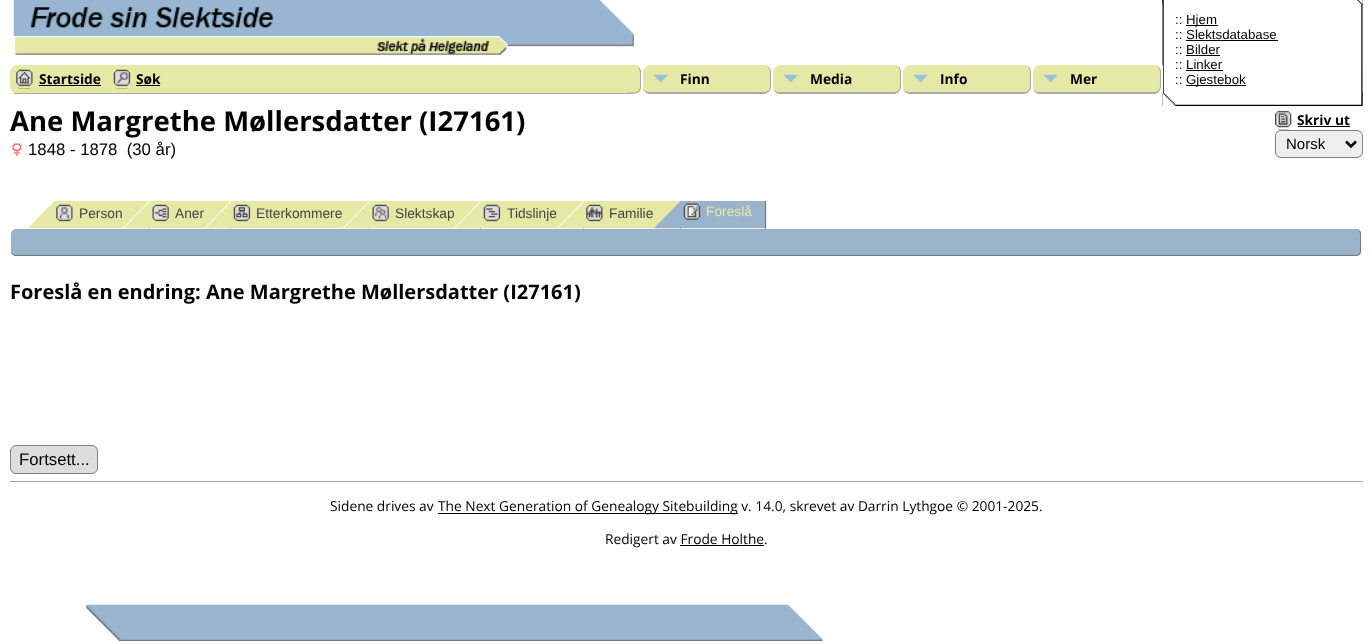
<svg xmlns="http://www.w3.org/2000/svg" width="1372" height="643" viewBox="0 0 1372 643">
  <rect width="100%" height="100%" fill="#fff"/>
  <image x="13" y="0" width="622" height="55" href="img/1.png"/>
  <image x="1162" y="0" width="201" height="5" href="img/2.png"/>
  <rect x="10" y="65" width="1353" height="29" rx="8" fill="#e5e9a5"/>
  <image x="1162" y="4" width="201" height="89" href="img/4.png"/>
  <image x="1162" y="0" width="201" height="5" href="img/3.png"/>
  <path d="M1186 25h32v1H1186z" fill="#000"/>
  <path d="M1186 40h92v1H1186z" fill="#000"/>
  <path d="M1186 55h34v1H1186z" fill="#000"/>
  <path d="M1186 70h37v1H1186z" fill="#000"/>
  <path d="M1186 85h60v1H1186z" fill="#000"/>
  <image x="1162" y="92" width="201" height="14" href="img/5.png"/>
  <image x="1162" y="92" width="201" height="14" href="img/6.png"/>
  <path d="M14 93h614v1H14z" fill="#aaa"/>
  <image x="16" y="69" width="17" height="20" href="img/7.png"/>
  <path d="M39 85h62v1H39z" fill="#000"/>
  <image x="113" y="69" width="18" height="20" href="img/8.png"/>
  <path d="M136 85h24v1H136z" fill="#000"/>
  <path d="M633 65h530v29H633z" fill="#fff"/>
  <path d="M628 65H633C637.5 65 641 68.5 641 73V86C641 90.5 637.5 94 633 94H628Z" fill="#e5e9a5"/>
  <path d="M627.5 65C633 65 639.5 64 641 71V88C639.5 94.5 633 94 627.5 94ZM627.5 65H635C641 66.5 640 74.5 640 79.5V87.5C638.5 93.5 632 92.5 627.5 92.5Z" fill="#aaa" fill-rule="evenodd"/>
  <rect x="643" y="65" width="128" height="29" rx="8" fill="#e5e9a5"/>
  <image x="653" y="74" width="15" height="9" href="img/9.png"/>
  <path d="M650 65H764C768 65 771 68 771 72V86C771 90 768 94 764 94H650C646 94 642 90 642 86V72C642 68 646 65 650 65ZM650 65H764C767 65 770 68 770 72V86C770 90 767 92 764 92H650C646 92 642 90 642 86V72C642 68 646 65 650 65Z" fill="#aaa" fill-rule="evenodd"/>
  <rect x="773" y="65" width="128" height="29" rx="8" fill="#e5e9a5"/>
  <image x="783" y="74" width="15" height="9" href="img/10.png"/>
  <path d="M780 65H894C898 65 901 68 901 72V86C901 90 898 94 894 94H780C776 94 772 90 772 86V72C772 68 776 65 780 65ZM780 65H894C897 65 900 68 900 72V86C900 90 897 92 894 92H780C776 92 772 90 772 86V72C772 68 776 65 780 65Z" fill="#aaa" fill-rule="evenodd"/>
  <rect x="903" y="65" width="128" height="29" rx="8" fill="#e5e9a5"/>
  <image x="913" y="74" width="15" height="9" href="img/9.png"/>
  <path d="M910 65H1024C1028 65 1031 68 1031 72V86C1031 90 1028 94 1024 94H910C906 94 902 90 902 86V72C902 68 906 65 910 65ZM910 65H1024C1027 65 1030 68 1030 72V86C1030 90 1027 92 1024 92H910C906 92 902 90 902 86V72C902 68 906 65 910 65Z" fill="#aaa" fill-rule="evenodd"/>
  <rect x="1033" y="65" width="128" height="29" rx="8" fill="#e5e9a5"/>
  <image x="1043" y="74" width="15" height="9" href="img/9.png"/>
  <path d="M1040 65H1154C1158 65 1161 68 1161 72V86C1161 90 1158 94 1154 94H1040C1036 94 1032 90 1032 86V72C1032 68 1036 65 1040 65ZM1040 65H1154C1157 65 1160 68 1160 72V86C1160 90 1157 92 1154 92H1040C1036 92 1032 90 1032 86V72C1032 68 1036 65 1040 65Z" fill="#aaa" fill-rule="evenodd"/>
  <image x="1275" y="110" width="17" height="20" href="img/11.png"/>
  <path d="M1298 126h52v1H1298z" fill="#000"/>
  <rect x="1275.5" y="130.5" width="87" height="27" rx="5.5" fill="#efefef" stroke="#808080"/>
  <path d="M1346 141.5L1351 146.5L1356 141.5" fill="none" stroke="#000" stroke-width="2.5"/>
  <image x="12" y="143" width="10" height="13" href="img/12.png"/>
  <image x="27" y="201" width="122" height="28" href="img/13.png"/>
  <path d="M149 228h1v1H149z" fill="#aaa"/>
  <image x="56" y="204" width="17" height="18" href="img/14.png"/>
  <image x="122" y="201" width="110" height="28" href="img/15.png"/>
  <path d="M230 201h1v28H230z" fill="#aaa"/>
  <image x="152" y="204" width="17" height="18" href="img/16.png"/>
  <path d="M369 228h1v1H369z" fill="#aaa"/>
  <path d="M583 228h1v1H583z" fill="#aaa"/>
  <rect x="11" y="229" width="1350" height="27" rx="5" fill="#99b3cc"/>
  <path d="M16 229H1356C1359 229 1361 231 1361 234V251C1361 254 1359 256 1356 256H16C13 256 11 254 11 251V234C11 231 13 229 16 229ZM16 229H1356C1358 229 1360 231 1360 234V251C1360 253 1358 255 1356 255H16C13 255 11 253 11 251V234C11 231 13 229 16 229Z" fill="#777" fill-rule="evenodd"/>
  <rect x="10.5" y="445.5" width="87" height="28" rx="5.5" fill="#ddd" stroke="#808080"/>
  <path d="M10 481h1353v1H10z" fill="#9f9f9f"/>
  <path d="M1361 481h1v1H1361z" fill="#eee"/>
  <path d="M438 513h300v1H438z" fill="#000"/>
  <path d="M680 545h84v1H680z" fill="#000"/>
  <image x="86" y="604" width="737" height="37" href="img/27.png"/>
  <g font-family="Liberation Sans" font-size="13.25" fill="#000">
    <text x="1175" y="24">::</text>
    <text x="1186" y="24">Hjem</text>
    <text x="1175" y="39">:: Slektsdatabase</text>
    <text x="1175" y="54">:: Bilder</text>
    <text x="1175" y="69">:: Linker</text>
    <text x="1175" y="84">::</text>
    <text x="1186" y="84">Gjestebok</text>
  </g>
  <g font-family="Open Sans" font-size="13.75" font-weight="bold" fill="#000">
    <text x="39" y="84">Startside</text>
    <text x="136" y="84">Søk</text>
    <text x="680" y="84">Finn</text>
    <text x="810" y="84">Media</text>
    <text x="940" y="84">Info</text>
    <text x="1070" y="84">Mer</text>
  </g>
  <text x="10" y="131" font-family="Open Sans" font-size="27.5" font-weight="bold" fill="#000">Ane Margrethe Møllersdatter (I27161)</text>
  <text x="1297" y="125" font-family="Open Sans" font-size="13.75" font-weight="bold" fill="#000">Skriv ut</text>
  <text x="1286" y="149" font-family="Liberation Sans" font-size="15" fill="#000">Norsk</text>
  <text x="28" y="155" font-family="Liberation Sans" font-size="16.75" fill="#000" xml:space="preserve">1848 - 1878  (30 år)</text>
  <g font-family="Liberation Sans" font-size="13.75" fill="#444">
    <text x="79" y="218">Person</text>
    <text x="175" y="218">Aner</text>
  </g>
  <image x="203" y="201" width="166" height="28" href="img/17.png"/>
  <image x="233" y="204" width="18" height="18" href="img/18.png"/>
  <text x="256" y="218" font-family="Liberation Sans" font-size="13.75" fill="#444">Etterkommere</text>
  <image x="342" y="201" width="140" height="28" href="img/19.png"/>
  <path d="M480 201h1v28H480z" fill="#aaa"/>
  <image x="372" y="204" width="17" height="18" href="img/20.png"/>
  <text x="395" y="218" font-family="Liberation Sans" font-size="13.75" fill="#444">Slektskap</text>
  <image x="453" y="201" width="130" height="28" href="img/21.png"/>
  <image x="483" y="204" width="18" height="18" href="img/22.png"/>
  <text x="507" y="218" font-family="Liberation Sans" font-size="13.75" fill="#444">Tidslinje</text>
  <image x="556" y="201" width="126" height="28" href="img/23.png"/>
  <path d="M680 228h1v1H680z" fill="#aaa"/>
  <image x="586" y="204" width="17" height="18" href="img/24.png"/>
  <text x="609" y="218" font-family="Liberation Sans" font-size="13.75" fill="#444">Familie</text>
  <image x="653" y="201" width="114" height="28" href="img/25.png"/>
  <path d="M765 201h1v28H765z" fill="#777"/>
  <image x="683" y="203" width="18" height="17" href="img/26.png"/>
  <text x="706" y="216" font-family="Liberation Sans" font-size="13.75" fill="#e5e9a5">Foreslå</text>
  <text x="10" y="299" font-family="Open Sans" font-size="20" font-weight="bold" fill="#000">Foreslå en endring: Ane Margrethe Møllersdatter (I27161)</text>
  <text x="19" y="465" font-family="Liberation Sans" font-size="16.75" fill="#000">Fortsett...</text>
  <g font-family="Open Sans" font-size="13.75" fill="#000">
    <text x="330" y="511">Sidene drives av</text>
    <text x="438" y="511">The Next Generation of Genealogy Sitebuilding v. 14.0, skrevet av Darrin Lythgoe © 2001-2025.</text>
    <text x="605" y="544">Redigert av Frode Holthe.</text>
  </g>
</svg>
